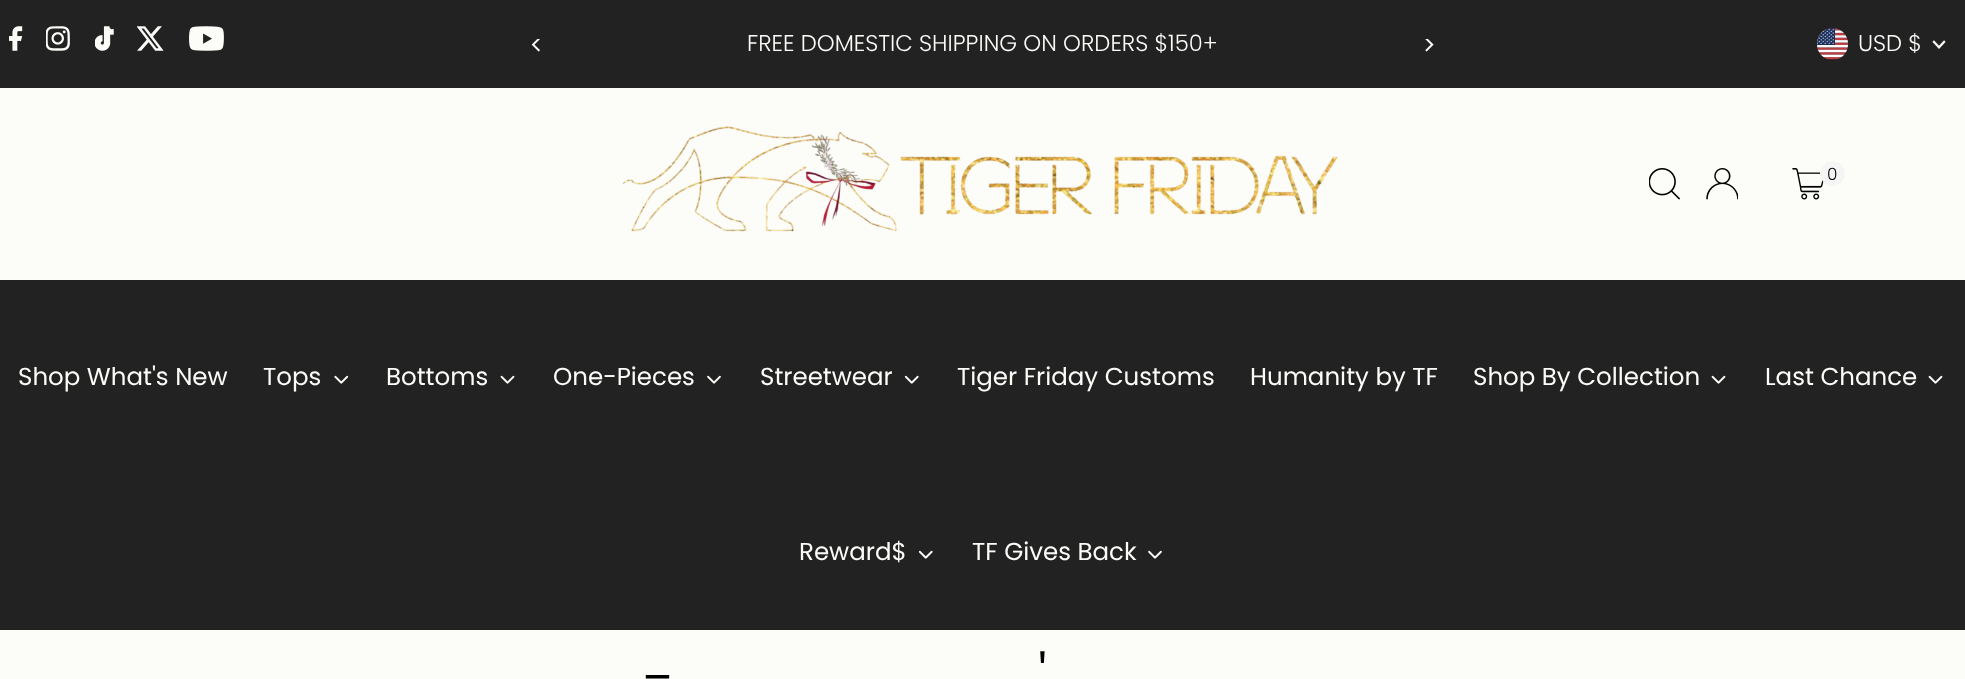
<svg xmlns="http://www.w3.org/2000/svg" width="1965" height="679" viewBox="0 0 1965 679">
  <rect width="100%" height="100%" fill="#fcfcf9"/>
  <path d="M0 0h1965v88H0z" fill="#222"/>
  <image x="9" y="26" width="14" height="25" href="img/1.png"/>
  <image x="46" y="26" width="24" height="25" href="img/2.png"/>
  <image x="95" y="26" width="19" height="25" href="img/3.png"/>
  <image x="137" y="26" width="27" height="25" href="img/4.png"/>
  <image x="189" y="26" width="35" height="25" href="img/5.png"/>
  <image x="531" y="39" width="9" height="13" href="img/6.png"/>
  <image x="1425" y="39" width="9" height="13" href="img/7.png"/>
  <image x="1817" y="28" width="31" height="32" href="img/8.png"/>
  <image x="1932" y="40" width="14" height="9" href="img/9.png"/>
  <image x="622" y="126" width="716" height="106" href="img/10.png"/>
  <image x="1649" y="168" width="31" height="32" href="img/11.png"/>
  <image x="1706" y="168" width="32" height="32" href="img/12.png"/>
  <image x="1792" y="168" width="32" height="32" href="img/13.png"/>
  <circle cx="1832.5" cy="173.5" r="12.5" fill="#f5f5f5"/>
  <path d="M0 280h1965v350H0z" fill="#222"/>
  <image x="334" y="375" width="15" height="9" href="img/14.png"/>
  <image x="500" y="375" width="15" height="9" href="img/15.png"/>
  <image x="707" y="375" width="14" height="9" href="img/16.png"/>
  <image x="904" y="375" width="15" height="9" href="img/17.png"/>
  <image x="1711" y="375" width="15" height="9" href="img/15.png"/>
  <image x="1928" y="375" width="15" height="9" href="img/15.png"/>
  <image x="918" y="550" width="15" height="9" href="img/17.png"/>
  <image x="1148" y="550" width="14" height="9" href="img/16.png"/>
  <g font-family="Poppins" font-size="22.75" font-weight="300" fill="#fcfcf9">
    <text x="747" y="51">FREE DOMESTIC SHIPPING ON ORDERS $150+</text>
    <text x="1858" y="51">USD $</text>
  </g>
  <text x="1827" y="180" font-family="Poppins" font-size="17" font-weight="300" fill="#000">0</text>
  <g font-family="Poppins" font-size="24.5" fill="#fcfcf9">
    <text x="18" y="385">Shop What's New</text>
    <text x="263" y="385">Tops</text>
    <text x="386" y="385">Bottoms</text>
    <text x="553" y="385">One-Pieces</text>
    <text x="760" y="385">Streetwear</text>
    <text x="957" y="385">Tiger Friday Customs</text>
    <text x="1250" y="385">Humanity by TF</text>
    <text x="1473" y="385">Shop By Collection</text>
    <text x="1765" y="385">Last Chance</text>
    <text x="799" y="560">Reward$</text>
    <text x="972" y="560">TF Gives Back</text>
  </g>
  <g font-family="Poppins" font-size="60" font-weight="300" letter-spacing="3" fill="#000">
    <text x="1038" y="699">'</text>
    <text x="644" y="699">-</text>
  </g>
</svg>
